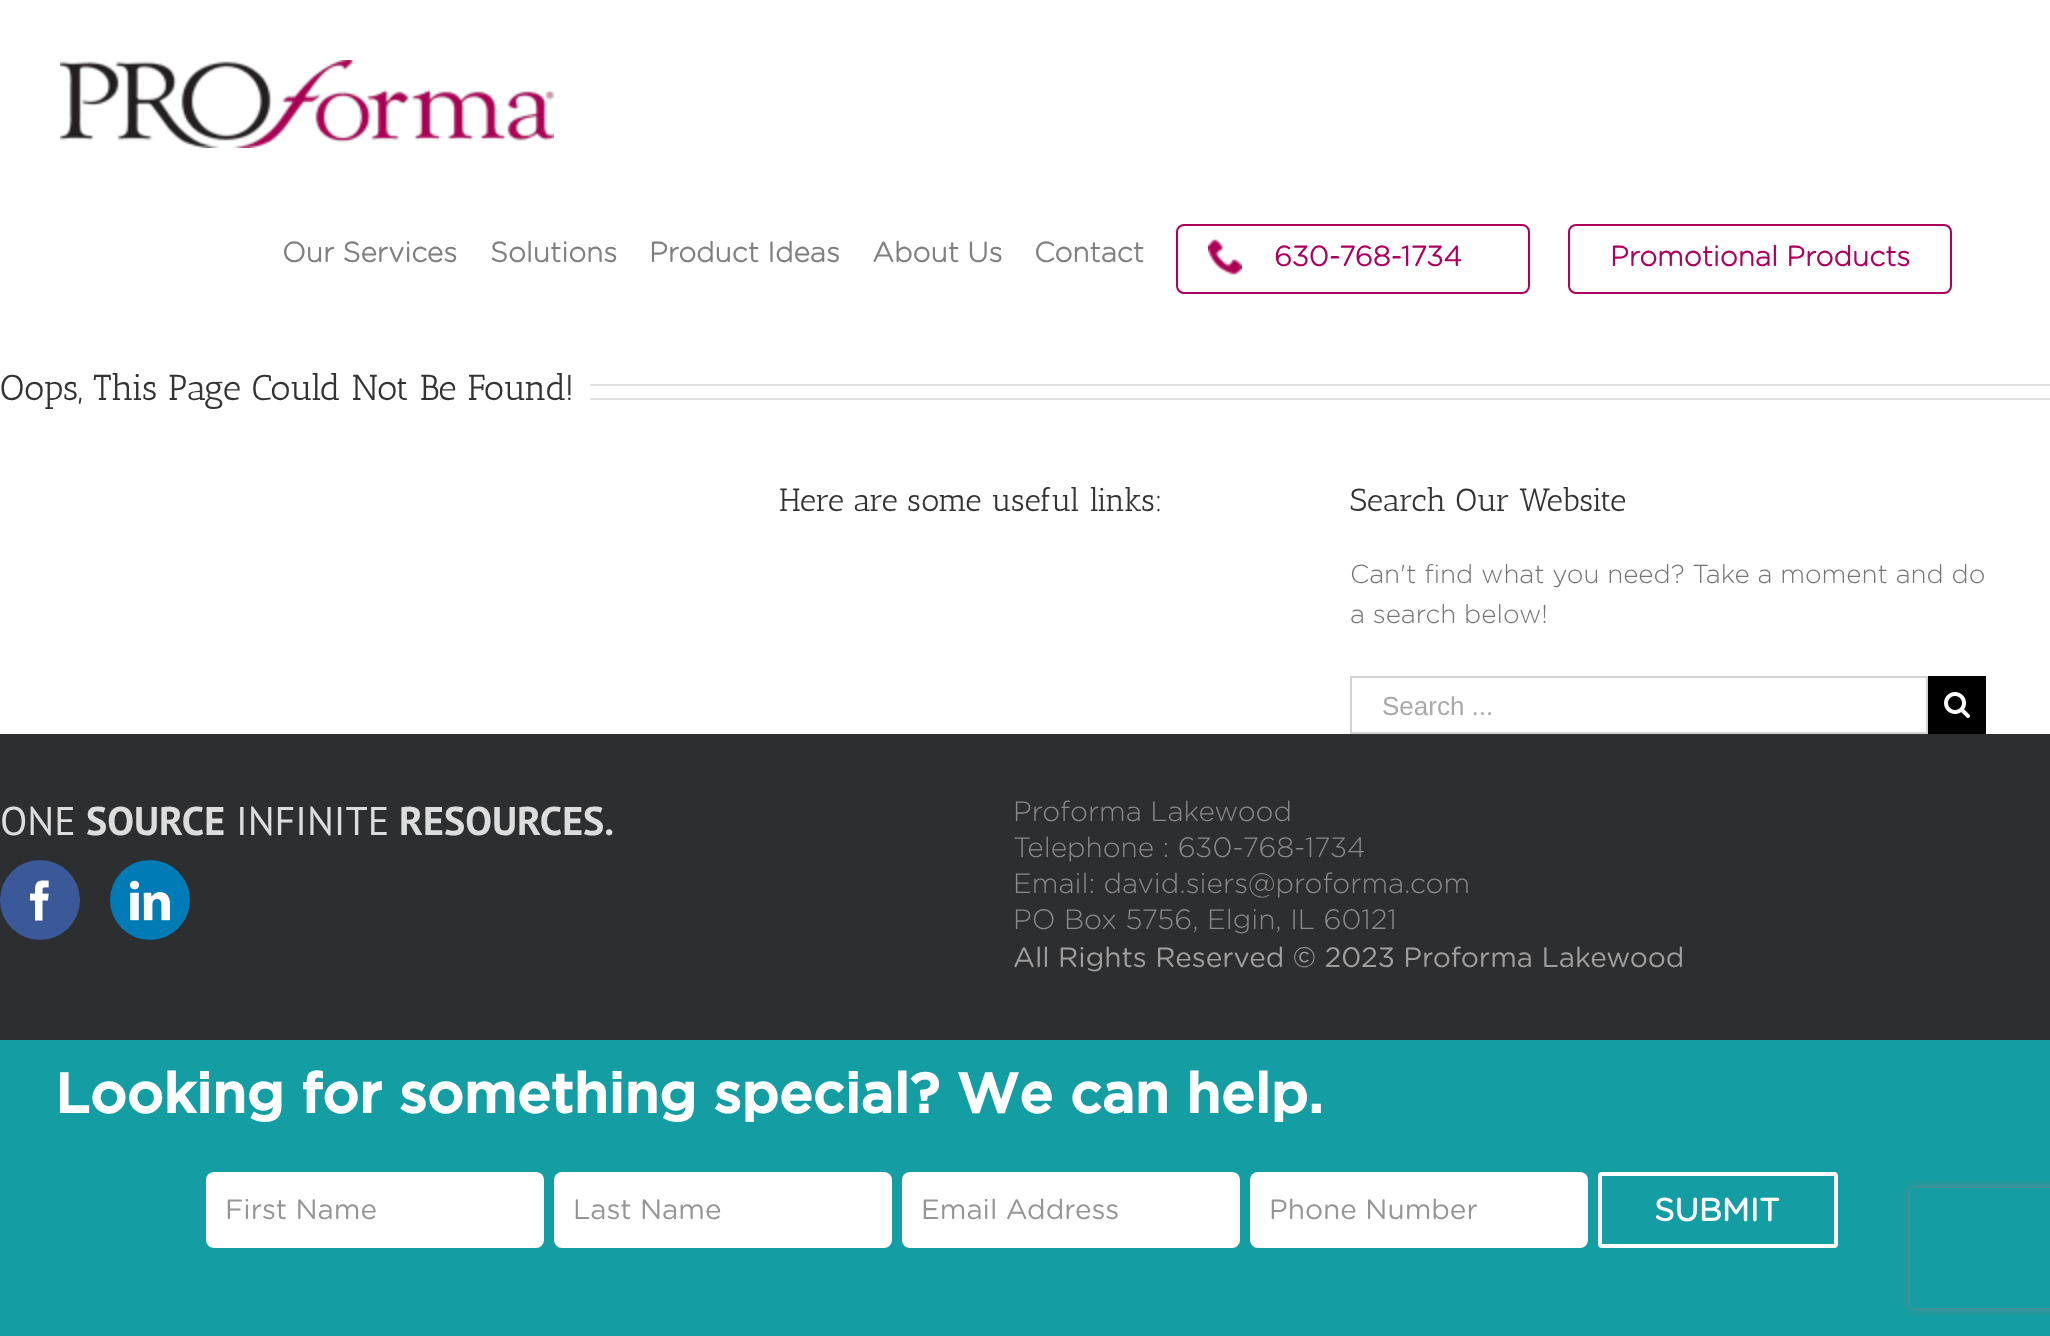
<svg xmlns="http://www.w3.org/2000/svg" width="2050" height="1336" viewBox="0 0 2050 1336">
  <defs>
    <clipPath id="clip1"><path d="M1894 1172H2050V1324H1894ZM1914 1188H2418C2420 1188 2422 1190 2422 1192V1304C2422 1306 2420 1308 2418 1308H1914C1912 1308 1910 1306 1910 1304V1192C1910 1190 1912 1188 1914 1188Z" clip-rule="evenodd"/></clipPath>
  </defs>
  <rect width="100%" height="100%" fill="#fff"/>
  <image x="60" y="60" width="494" height="88" href="img/1.png"/>
  <rect x="1177" y="225" width="352" height="68" rx="7" fill="none" stroke="#ac005c" stroke-width="2"/>
  <image x="1208" y="239" width="34" height="36" href="img/2.png"/>
  <rect x="1569" y="225" width="382" height="68" rx="7" fill="none" stroke="#ac005c" stroke-width="2"/>
  <path d="M590 384h1460v2H590z" fill="#e0dede"/>
  <path d="M590 398h1460v2H590z" fill="#e0dede"/>
  <path d="M1351 677h576v56H1351z" fill="none" stroke="#d2d2d2" stroke-width="2"/>
  <path d="M1928 676h58v58H1928z" fill="#000"/>
  <image x="1944" y="692" width="26" height="26" href="img/3.png"/>
  <path d="M0 734h2050v306H0z" fill="#2d2e30"/>
  <circle cx="40" cy="900" r="40" fill="#3b5998"/>
  <image x="30" y="880" width="19" height="41" href="img/4.png"/>
  <circle cx="150" cy="900" r="40" fill="#007bb6"/>
  <image x="130" y="880" width="40" height="41" href="img/5.png"/>
  <path d="M0 1040h2050v296H0z" fill="#149da3"/>
  <rect x="206" y="1172" width="338" height="76" rx="8" fill="#fff"/>
  <rect x="554" y="1172" width="338" height="76" rx="8" fill="#fff"/>
  <rect x="902" y="1172" width="338" height="76" rx="8" fill="#fff"/>
  <rect x="1250" y="1172" width="338" height="76" rx="8" fill="#fff"/>
  <rect x="1600" y="1174" width="236" height="72" rx="2" fill="none" stroke="#fff" stroke-width="4"/>
  <g clip-path="url(#clip1)">
    <rect x="1910" y="1188" width="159" height="120" rx="4" fill="#808080" filter="blur(5px)"/>
  </g>
  <g font-family="'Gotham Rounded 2'" font-size="28" font-weight="bold" fill="#808080">
    <text x="282" y="262">Our Services</text>
    <text x="490" y="262">Solutions</text>
    <text x="649" y="262">Product Ideas</text>
    <text x="872" y="262">About Us</text>
    <text x="1034" y="262">Contact</text>
  </g>
  <g font-family="'Gotham Rounded 2'" font-size="28" font-weight="bold" fill="#ac005c">
    <text x="1274" y="266">630-768-1734</text>
    <text x="1610" y="266">Promotional Products</text>
  </g>
  <text x="0" y="400" font-family="Antic Slab" font-size="36" fill="#333">Oops, This Page Could Not Be Found!</text>
  <g font-family="Antic Slab" font-size="32" fill="#333">
    <text x="779" y="511">Here are some useful links:</text>
    <text x="1350" y="511">Search Our Website</text>
  </g>
  <g font-family="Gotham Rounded" font-size="26" font-weight="300" fill="#747474">
    <text x="1350" y="583">Can't find what you need? Take a moment and do</text>
    <text x="1350" y="623">a search below!</text>
  </g>
  <text x="1382" y="715" font-family="Liberation Sans" font-size="26" fill="#aaa9a9">Search ...</text>
  <text x="0" y="835" font-family="PT Sans" font-size="40" fill="#ddd">ONE</text>
  <text x="86" y="835" font-family="PT Sans" font-size="40" font-weight="bold" fill="#ddd">SOURCE</text>
  <text x="236" y="835" font-family="PT Sans" font-size="40" fill="#ddd">INFINITE</text>
  <text x="399" y="835" font-family="PT Sans" font-size="40" font-weight="bold" fill="#ddd">RESOURCES.</text>
  <g font-family="Gotham Rounded" font-size="28" font-weight="300" fill="#8c8989">
    <text x="1013" y="821">Proforma Lakewood</text>
    <text x="1013" y="857">Telephone : 630-768-1734</text>
    <text x="1013" y="893">Email: david.siers@proforma.com</text>
    <text x="1013" y="929">PO Box 5756, Elgin, IL 60121</text>
  </g>
  <text x="1013" y="967" font-family="Gotham Rounded" font-size="28" fill="#a09d9d">All Rights Reserved © 2023 Proforma Lakewood</text>
  <text x="55" y="1113" font-family="Gotham" font-size="56" font-weight="bold" fill="#fff">Looking for something special? We can help.</text>
  <g font-family="Gotham Rounded" font-size="28" fill="#959595">
    <text x="225" y="1219">First Name</text>
    <text x="573" y="1219">Last Name</text>
    <text x="921" y="1219">Email Address</text>
    <text x="1269" y="1219">Phone Number</text>
  </g>
  <text x="1654" y="1221" font-family="Gotham Rounded" font-size="32" font-weight="bold" fill="#fff">SUBMIT</text>
</svg>
